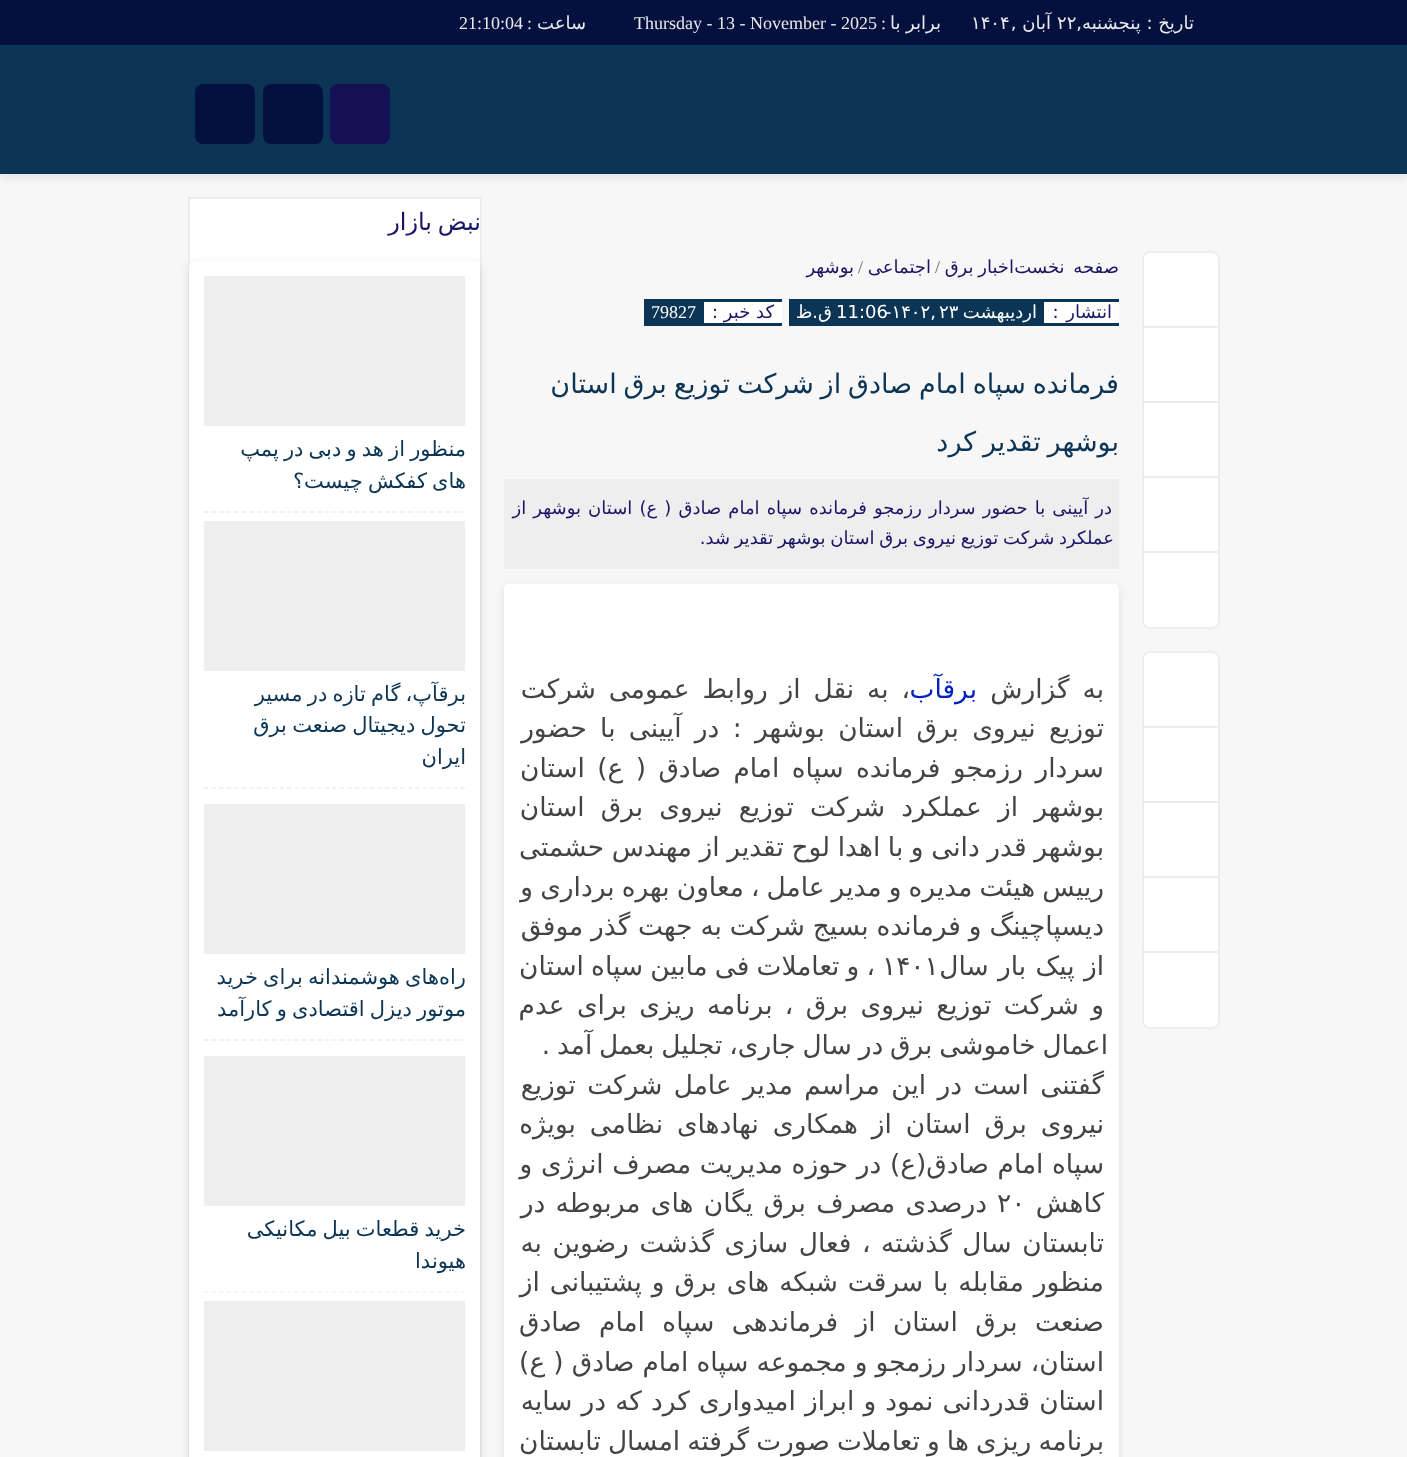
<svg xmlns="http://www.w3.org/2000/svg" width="1407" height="1457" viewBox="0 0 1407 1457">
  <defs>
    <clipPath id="clip1"><path d="M189 198h291v48H189z"/></clipPath>
    <clipPath id="clip2"><path d="M204 434h261v63H204z"/></clipPath>
    <clipPath id="clip3"><path d="M204 678h261v95H204z"/></clipPath>
    <clipPath id="clip4"><path d="M204 962h261v63H204z"/></clipPath>
    <clipPath id="clip5"><path d="M204 1214h261v63H204z"/></clipPath>
  </defs>
  <rect width="100%" height="100%" fill="#f7f7f7"/>
  <path d="M0 0h1407v45H0z" fill="#04113e"/>
  <path d="M0 47h1407v129H0z" fill="#0000001a" filter="blur(6px)"/>
  <path d="M0 45h1407v129H0z" fill="#0c3555"/>
  <rect x="330" y="84" width="60" height="60" rx="8" fill="#150f55"/>
  <rect x="263" y="84" width="60" height="60" rx="8" fill="#04113e"/>
  <rect x="195" y="84" width="60" height="60" rx="8" fill="#04113e"/>
  <rect x="1142" y="251" width="78" height="378" rx="8" fill="#fff"/>
  <rect x="1143" y="252" width="76" height="376" rx="7" fill="none" stroke="#d3d3d369" stroke-width="2"/>
  <path d="M1143 326h75v2H1143z" fill="#d3d3d369"/>
  <path d="M1143 401h75v2H1143z" fill="#d3d3d369"/>
  <path d="M1143 476h75v2H1143z" fill="#d3d3d369"/>
  <path d="M1143 551h75v2H1143z" fill="#d3d3d369"/>
  <rect x="1142" y="651" width="78" height="378" rx="8" fill="#fff"/>
  <rect x="1143" y="652" width="76" height="376" rx="7" fill="none" stroke="#d3d3d369" stroke-width="2"/>
  <path d="M1143 726h75v2H1143z" fill="#d3d3d369"/>
  <path d="M1143 801h75v2H1143z" fill="#d3d3d369"/>
  <path d="M1143 876h75v2H1143z" fill="#d3d3d369"/>
  <path d="M1143 951h75v2H1143z" fill="#d3d3d369"/>
  <path d="M789 299h330v27H789z" fill="#0c3555"/>
  <path d="M1044 302h75v21H1044z" fill="#fff"/>
  <path d="M644 299h138v27H644z" fill="#0c3555"/>
  <path d="M704 302h78v21H704z" fill="#fff"/>
  <path d="M504 479h615v90H504z" fill="#eee"/>
  <rect x="504" y="587" width="615" height="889" rx="5" fill="#0000001a" filter="blur(4.5px)"/>
  <rect x="504" y="584" width="615" height="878" rx="5" fill="#fff"/>
  <path d="M190 199h290v67H190z" fill="#fff"/>
  <path d="M189 198h292v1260H189z" fill="none" stroke="#ededed" stroke-width="2"/>
  <rect x="189" y="264" width="291" height="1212" rx="5" fill="#0000001a" filter="blur(4.5px)"/>
  <rect x="189" y="261" width="291" height="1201" rx="5" fill="#fff"/>
  <path d="M204 512H465" fill="none" stroke="#ededed" stroke-width="1.5" stroke-dasharray="4.5 3.04"/>
  <path d="M204 276h261v150H204z" fill="#eee"/>
  <path d="M204 788H465" fill="none" stroke="#ededed" stroke-width="1.5" stroke-dasharray="4.5 3.04"/>
  <path d="M204 521h261v150H204z" fill="#eee"/>
  <path d="M204 1040H465" fill="none" stroke="#ededed" stroke-width="1.5" stroke-dasharray="4.5 3.04"/>
  <path d="M204 804h261v150H204z" fill="#eee"/>
  <path d="M204 1292H465" fill="none" stroke="#f3f3f3" stroke-width="1.5" stroke-dasharray="4.5 3.04"/>
  <path d="M204 1056h261v150H204z" fill="#eee"/>
  <path d="M204 1301h261v150H204z" fill="#eee"/>
  <text x="1194" y="29" font-family="DejaVu Sans" font-size="18" direction="rtl" fill="#ebebeb">تاریخ : پنجشنبه,</text>
  <text x="1057" y="29" font-family="DejaVu Sans" font-size="18" fill="#ebebeb">۲۲</text>
  <text x="1051" y="29" font-family="DejaVu Sans" font-size="18" direction="rtl" fill="#ebebeb">آبان ,</text>
  <text x="971" y="29" font-family="DejaVu Sans" font-size="18" fill="#ebebeb">۱۴۰۴</text>
  <text x="941" y="29" font-family="DejaVu Sans" font-size="18" direction="rtl" fill="#ebebeb">برابر با</text>
  <text x="886" y="29" font-family="Liberation Serif" font-size="18" direction="rtl" fill="#ebebeb">:</text>
  <text x="634" y="29" font-family="Liberation Serif" font-size="18" fill="#ebebeb">Thursday - 13 - November - 2025</text>
  <text x="586" y="29" font-family="DejaVu Sans" font-size="18" direction="rtl" fill="#ebebeb">ساعت</text>
  <text x="532" y="29" font-family="Liberation Serif" font-size="18" direction="rtl" fill="#ebebeb">:</text>
  <text x="459" y="29" font-family="Liberation Serif" font-size="18" fill="#ebebeb">21:10:04</text>
  <g font-family="DejaVu Sans" font-size="18" direction="rtl" fill="#1b1464">
    <text x="1119" y="273" word-spacing="3">صفحه نخست</text>
    <text x="1014" y="273" word-spacing="-1">اخبار برق</text>
  </g>
  <text x="935" y="273" font-family="Liberation Serif" font-size="18" fill="#666">/</text>
  <text x="931" y="273" font-family="DejaVu Sans" font-size="18" direction="rtl" fill="#1b1464">اجتماعی</text>
  <text x="858" y="273" font-family="Liberation Serif" font-size="18" fill="#666">/</text>
  <g font-family="DejaVu Sans" font-size="18" direction="rtl" fill="#1b1464">
    <text x="854" y="273">بوشهر</text>
    <text x="1112" y="318" word-spacing="2">انتشار :</text>
  </g>
  <text x="1037" y="318" font-family="DejaVu Sans" font-size="18" direction="rtl" fill="#fff">اردیبهشت</text>
  <g font-family="DejaVu Sans" font-size="18" fill="#fff">
    <text x="939" y="318">۲۳</text>
    <text x="836" y="318">11:06</text>
    <text x="885" y="318">-۱۴۰۲,</text>
  </g>
  <text x="832" y="318" font-family="DejaVu Sans" font-size="18" direction="rtl" fill="#fff">ق.ظ</text>
  <text x="774" y="318" font-family="DejaVu Sans" font-size="18" direction="rtl" fill="#1b1464">کد خبر :</text>
  <text x="651" y="318" font-family="Liberation Serif" font-size="18" fill="#fff">79827</text>
  <g font-family="DejaVu Sans" font-size="27" direction="rtl" fill="#0c3555">
    <text x="1119" y="393" word-spacing="-1.75">فرمانده سپاه امام صادق از شرکت توزیع برق استان</text>
    <text x="1119" y="451" word-spacing="-1.75">بوشهر تقدیر کرد</text>
  </g>
  <g font-family="DejaVu Sans" font-size="18" direction="rtl" fill="#1b1464">
    <text x="1112" y="514" word-spacing="1.4">در آیینی با حضور سردار رزمجو فرمانده سپاه امام صادق ( ع) استان بوشهر از</text>
    <text x="1114" y="544" word-spacing="-1">عملکرد شرکت توزیع نیروی برق استان بوشهر تقدیر شد.</text>
  </g>
  <text x="1104" y="698" word-spacing="4.5" font-family="DejaVu Sans" font-size="26.4" direction="rtl" fill="#444">به گزارش</text>
  <text x="977" y="698" font-family="DejaVu Sans" font-size="26.4" direction="rtl" fill="#0321c0">برقآب</text>
  <g font-family="DejaVu Sans" font-size="26.4" direction="rtl" fill="#444">
    <text x="910" y="698" word-spacing="4.5">، به نقل از روابط عمومی شرکت</text>
    <text x="1104" y="737" word-spacing="5">توزیع نیروی برق استان بوشهر : در آیینی با حضور</text>
    <text x="1104" y="777" word-spacing="4">سردار رزمجو فرمانده سپاه امام صادق ( ع) استان</text>
    <text x="1104" y="816" word-spacing="7.75">بوشهر از عملکرد شرکت توزیع نیروی برق استان</text>
    <text x="1104" y="856" word-spacing="-0.75">بوشهر قدر دانی و با اهدا لوح تقدیر از مهندس حشمتی</text>
    <text x="1104" y="896" word-spacing="-1.25">رییس هیئت مدیره و مدیر عامل ، معاون بهره برداری و</text>
    <text x="1104" y="935" word-spacing="-0.5">دیسپاچینگ و فرمانده بسیج شرکت به جهت گذر موفق</text>
    <text x="1104" y="975" word-spacing="1">از پیک بار سال</text>
  </g>
  <text x="882" y="975" font-family="DejaVu Sans" font-size="26.4" fill="#444">۱۴۰۱</text>
  <g font-family="DejaVu Sans" font-size="26.4" direction="rtl" fill="#444">
    <text x="875" y="975" word-spacing="-1.25">، و تعاملات فی مابین سپاه استان</text>
    <text x="1104" y="1014" word-spacing="4">و شرکت توزیع نیروی برق ، برنامه ریزی برای عدم</text>
    <text x="1108" y="1054" word-spacing="-1.5">اعمال خاموشی برق در سال جاری، تجلیل بعمل آمد .</text>
    <text x="1104" y="1094" word-spacing="3">گفتنی است در این مراسم مدیر عامل شرکت توزیع</text>
    <text x="1104" y="1133" word-spacing="5.5">نیروی برق استان از همکاری نهادهای نظامی بویژه</text>
    <text x="1104" y="1173" word-spacing="0.25">سپاه امام صادق(ع) در حوزه مدیریت مصرف انرژی و</text>
    <text x="1104" y="1212">کاهش</text>
  </g>
  <text x="997" y="1212" font-family="DejaVu Sans" font-size="26.4" fill="#444">۲۰</text>
  <g font-family="DejaVu Sans" font-size="26.4" direction="rtl" fill="#444">
    <text x="987" y="1212" word-spacing="2">درصدی مصرف برق یگان های مربوطه در</text>
    <text x="1104" y="1252" word-spacing="2.25">تابستان سال گذشته ، فعال سازی گذشت رضوین به</text>
    <text x="1104" y="1291" word-spacing="1.5">منظور مقابله با سرقت شبکه های برق و پشتیبانی از</text>
    <text x="1104" y="1331" word-spacing="9">صنعت برق استان از فرماندهی سپاه امام صادق</text>
    <text x="1104" y="1371" word-spacing="-0.25">استان، سردار رزمجو و مجموعه سپاه امام صادق ( ع)</text>
    <text x="1104" y="1410" word-spacing="0.75">استان قدردانی نمود و ابراز امیدواری کرد که در سایه</text>
    <text x="1104" y="1450" word-spacing="-1.25">برنامه ریزی ها و تعاملات صورت گرفته امسال تابستان</text>
  </g>
  <g clip-path="url(#clip1)">
    <text x="481" y="230" word-spacing="-2" font-family="DejaVu Sans" font-size="24" direction="rtl" fill="#1b1464">نبض بازار</text>
  </g>
  <g clip-path="url(#clip2)">
    <g font-family="DejaVu Sans" font-size="21" direction="rtl" fill="#0c3555">
      <text x="466" y="456" word-spacing="-1.5">منظور از هد و دبی در پمپ</text>
      <text x="466" y="488" word-spacing="-1.5">های کفکش چیست؟</text>
    </g>
  </g>
  <g clip-path="url(#clip3)">
    <g font-family="DejaVu Sans" font-size="21" direction="rtl" fill="#0c3555">
      <text x="466" y="701" word-spacing="-1.5">برقآپ، گام تازه در مسیر</text>
      <text x="466" y="732" word-spacing="-1.5">تحول دیجیتال صنعت برق</text>
    </g>
  </g>
  <g font-family="DejaVu Sans" font-size="21" direction="rtl" fill="#0c3555">
    <text x="466" y="764">ایران</text>
    <text x="439" y="984" word-spacing="-1.5">های هوشمندانه برای خرید</text>
    <text x="466" y="984">راه</text>
  </g>
  <g clip-path="url(#clip4)">
    <text x="466" y="1016" word-spacing="-1.5" font-family="DejaVu Sans" font-size="21" direction="rtl" fill="#0c3555">موتور دیزل اقتصادی و کارآمد</text>
  </g>
  <g clip-path="url(#clip5)">
    <text x="466" y="1236" word-spacing="-1.5" font-family="DejaVu Sans" font-size="21" direction="rtl" fill="#0c3555">خرید قطعات بیل مکانیکی</text>
  </g>
  <text x="466" y="1268" font-family="DejaVu Sans" font-size="21" direction="rtl" fill="#0c3555">هیوندا</text>
</svg>
